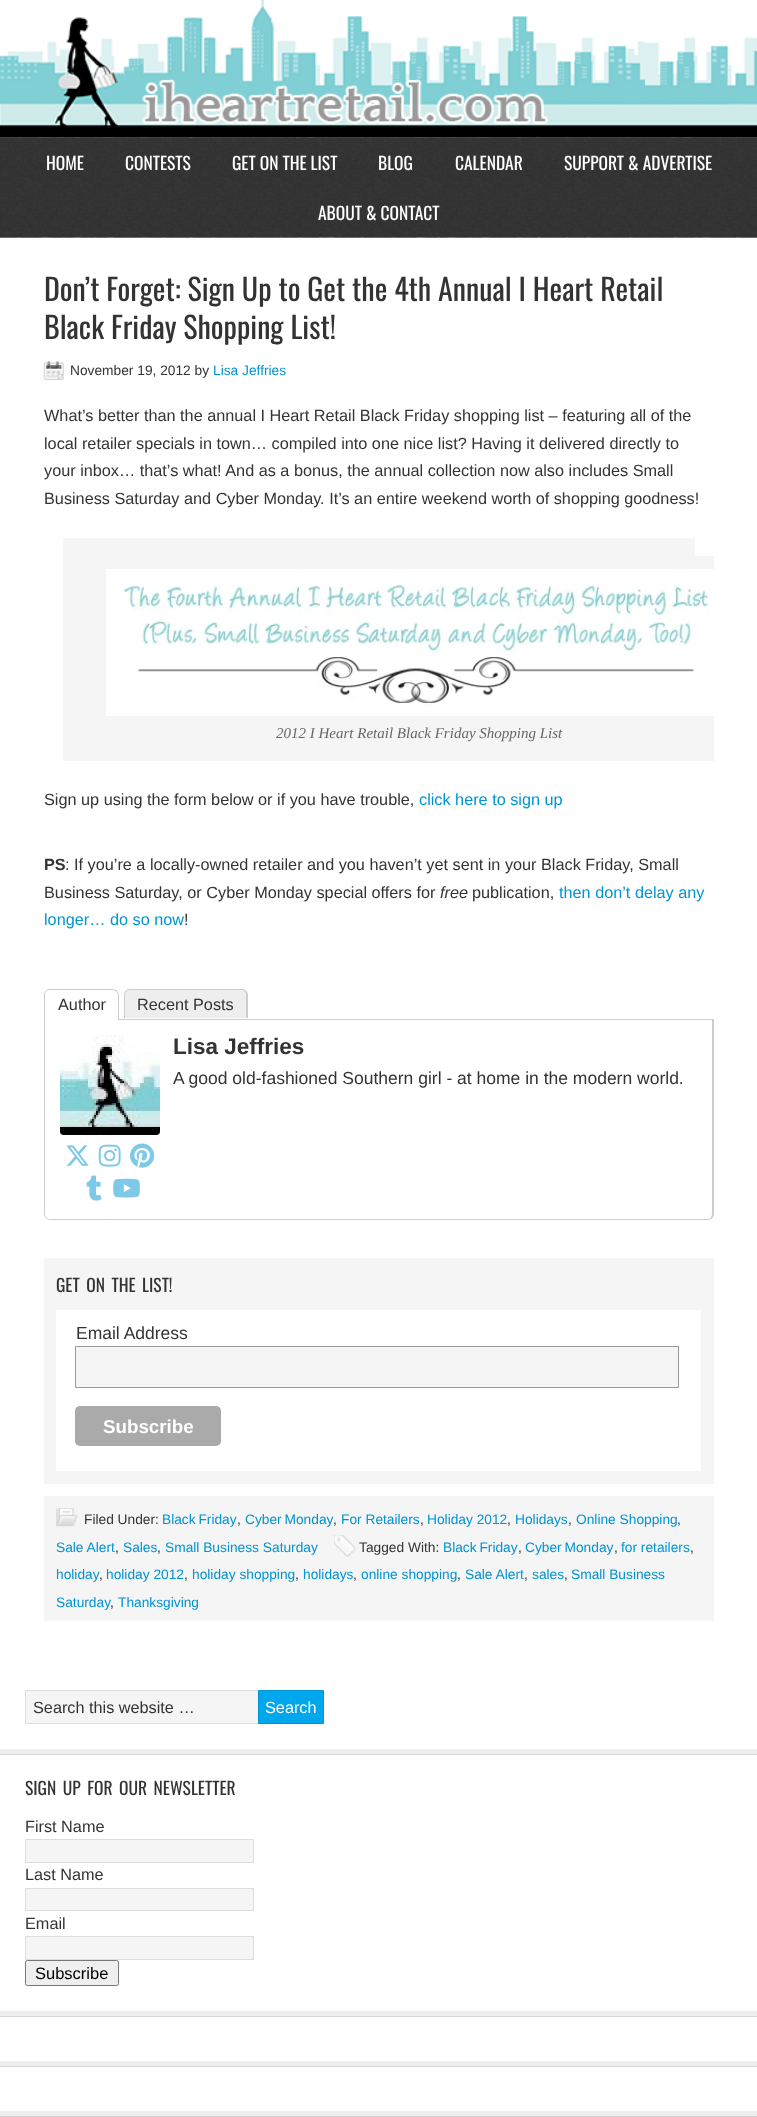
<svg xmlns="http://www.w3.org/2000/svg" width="757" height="2117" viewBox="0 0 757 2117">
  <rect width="100%" height="100%" fill="#fff"/>
  <image x="0" y="137" width="757" height="101" href="img/1.png"/>
  <image x="0" y="0" width="757" height="138" href="img/2.png"/>
  <image x="0" y="137" width="757" height="101" href="img/3.png"/>
  <image x="43" y="361" width="21" height="19" href="img/4.png"/>
  <path d="M63 538h632v223H63z" fill="#f5f5f5"/>
  <path d="M695 556h19v205H695z" fill="#f5f5f5"/>
  <path d="M106 569h608v147H106z" fill="#fff"/>
  <image x="123" y="584" width="587" height="122" href="img/5.png"/>
  <path d="M119 1019h595v1H119z" fill="#ccc"/>
  <path d="M50 989H112C116 989 119 992 119 995V1020H44V995C44 992 47 989 50 989ZM50 990H112C115 990 118 992 118 995V1020H45V995C45 992 47 990 50 990Z" fill="#ccc" fill-rule="evenodd"/>
  <path d="M130 989H242C245.5 989 248 991.5 248 995V1018H124V995C124 991.5 126.5 989 130 989Z" fill="#eee"/>
  <path d="M130 989H241C245 989 248 992 248 995V1018H124V995C124 992 127 989 130 989ZM130 990H241C244 990 246 992 246 995V1018H125V995C125 992 127 990 130 990Z" fill="#ccc" fill-rule="evenodd"/>
  <path d="M44 1020H714V1214C714 1217 711 1220 708 1220H50C47 1220 44 1217 44 1214ZM45 1020H712V1214C712 1217 710 1219 708 1219H50C47 1219 45 1217 45 1214Z" fill="#ccc" fill-rule="evenodd"/>
  <image x="60" y="1035" width="100" height="100" href="img/6.png"/>
  <image x="66" y="1145" width="23" height="21" href="img/7.png"/>
  <image x="98" y="1144" width="23" height="23" href="img/8.png"/>
  <image x="130" y="1143" width="25" height="25" href="img/9.png"/>
  <image x="86" y="1175" width="16" height="26" href="img/10.png"/>
  <image x="113" y="1178" width="27" height="20" href="img/11.png"/>
  <path d="M44 1258h670v226H44z" fill="#f5f5f5"/>
  <path d="M56 1310h645v161H56z" fill="#fff"/>
  <path d="M75.5 1346.5h603v41H75.5z" fill="#f5f5f5" stroke="#999"/>
  <rect x="75" y="1406" width="146" height="40" rx="5" fill="#aaa"/>
  <path d="M44 1496h670v125H44z" fill="#f5f5f5"/>
  <image x="56" y="1508" width="22" height="19" href="img/12.png"/>
  <image x="334" y="1535" width="22" height="22" href="img/13.png"/>
  <path d="M0 1754h757v1H0z" fill="#d5d5d5"/>
  <path d="M0 1749h757v5H0z" fill="#eee"/>
  <path d="M26 1691h232v32H26z" fill="#f5f5f5"/>
  <path d="M25.5 1690.5h239v33H25.5z" fill="none" stroke="#ddd"/>
  <path d="M258.5 1690.5h65v33H258.5z" fill="#00a7ed" stroke="#0094d2"/>
  <path d="M0 2016h757v1H0z" fill="#d5d5d5"/>
  <path d="M0 2011h757v5H0z" fill="#eee"/>
  <path d="M25.5 1839.5h228v23H25.5z" fill="#f5f5f5" stroke="#ddd"/>
  <path d="M25.5 1888.5h228v22H25.5z" fill="#f5f5f5" stroke="#ddd"/>
  <path d="M25.5 1936.5h228v23H25.5z" fill="#f5f5f5" stroke="#ddd"/>
  <rect x="25.5" y="1960.5" width="93" height="25" rx="2" fill="#efefef" stroke="#767676"/>
  <path d="M0 2066h757v1H0z" fill="#d5d5d5"/>
  <path d="M0 2061h757v5H0z" fill="#eee"/>
  <path d="M0 2116h757v1H0z" fill="#d5d5d5"/>
  <path d="M0 2111h757v5H0z" fill="#eee"/>
  <g font-family="Oswald" font-size="17.5" fill="#fff">
    <text x="46" y="170">HOME</text>
    <text x="125" y="170">CONTESTS</text>
    <text x="232" y="170">GET ON THE LIST</text>
    <text x="378" y="170">BLOG</text>
    <text x="455" y="170">CALENDAR</text>
    <text x="564" y="170">SUPPORT &amp; ADVERTISE</text>
    <text x="318" y="220">ABOUT &amp; CONTACT</text>
  </g>
  <g font-family="Oswald" font-size="30" fill="#333">
    <text x="44" y="301">Don’t Forget: Sign Up to Get the 4th Annual I Heart Retail</text>
    <text x="44" y="339">Black Friday Shopping List!</text>
  </g>
  <text x="70" y="375" font-family="Liberation Sans" font-size="13.75" fill="#333">November 19, 2012 by</text>
  <text x="213" y="375" font-family="Liberation Sans" font-size="13.75" fill="#0094d2">Lisa Jeffries</text>
  <g font-family="Liberation Sans" font-size="16.25" fill="#333">
    <text x="44" y="421">What’s better than the annual I Heart Retail Black Friday shopping list – featuring all of the</text>
    <text x="44" y="449">local retailer specials in town… compiled into one nice list? Having it delivered directly to</text>
    <text x="44" y="476">your inbox… that’s what! And as a bonus, the annual collection now also includes Small</text>
    <text x="44" y="504">Business Saturday and Cyber Monday. It’s an entire weekend worth of shopping goodness!</text>
  </g>
  <text x="276" y="738" font-family="Liberation Serif" font-size="15" font-style="italic" fill="#666">2012 I Heart Retail Black Friday Shopping List</text>
  <text x="44" y="805" font-family="Liberation Sans" font-size="16.25" fill="#333">Sign up using the form below or if you have trouble,</text>
  <text x="419" y="805" font-family="Liberation Sans" font-size="16.25" fill="#0094d2">click here to sign up</text>
  <text x="44" y="870" font-family="Liberation Sans" font-size="16.25" font-weight="bold" fill="#333">PS</text>
  <g font-family="Liberation Sans" font-size="16.25" fill="#333">
    <text x="65" y="870">: If you’re a locally-owned retailer and you haven’t yet sent in your Black Friday, Small</text>
    <text x="44" y="898">Business Saturday, or Cyber Monday special offers for</text>
  </g>
  <text x="440" y="898" font-family="Liberation Sans" font-size="16.25" font-style="italic" fill="#333">free</text>
  <text x="472" y="898" font-family="Liberation Sans" font-size="16.25" fill="#333">publication,</text>
  <g font-family="Liberation Sans" font-size="16.25" fill="#0094d2">
    <text x="559" y="898">then don’t delay any</text>
    <text x="44" y="925">longer… do so now</text>
  </g>
  <g font-family="Liberation Sans" font-size="16.25" fill="#333">
    <text x="184" y="925">!</text>
    <text x="58" y="1010">Author</text>
    <text x="137" y="1010">Recent Posts</text>
  </g>
  <text x="173" y="1054" font-family="Liberation Sans" font-size="22.5" font-weight="bold" fill="#333">Lisa Jeffries</text>
  <text x="173" y="1084" font-family="Liberation Sans" font-size="17.5" fill="#333">A good old-fashioned Southern girl - at home in the modern world.</text>
  <text x="56" y="1292" word-spacing="2.5" font-family="Oswald" font-size="17.5" fill="#333">GET ON THE LIST!</text>
  <text x="76" y="1339" font-family="Liberation Sans" font-size="17.5" fill="#333">Email Address</text>
  <text x="103" y="1433" font-family="Liberation Sans" font-size="18.75" font-weight="bold" fill="#fff">Subscribe</text>
  <text x="84" y="1524" font-family="Liberation Sans" font-size="13.75" fill="#333">Filed Under:</text>
  <text x="162" y="1524" word-spacing="-1" font-family="Liberation Sans" font-size="13.75" fill="#0094d2">Black Friday</text>
  <text x="237" y="1524" font-family="Liberation Sans" font-size="13.75" fill="#333">,</text>
  <text x="245" y="1524" word-spacing="-1" font-family="Liberation Sans" font-size="13.75" fill="#0094d2">Cyber Monday</text>
  <text x="333" y="1524" font-family="Liberation Sans" font-size="13.75" fill="#333">,</text>
  <text x="341" y="1524" font-family="Liberation Sans" font-size="13.75" fill="#0094d2">For Retailers</text>
  <text x="420" y="1524" font-family="Liberation Sans" font-size="13.75" fill="#333">,</text>
  <text x="427" y="1524" font-family="Liberation Sans" font-size="13.75" fill="#0094d2">Holiday 2012</text>
  <text x="507" y="1524" font-family="Liberation Sans" font-size="13.75" fill="#333">,</text>
  <text x="515" y="1524" font-family="Liberation Sans" font-size="13.75" fill="#0094d2">Holidays</text>
  <text x="568" y="1524" font-family="Liberation Sans" font-size="13.75" fill="#333">,</text>
  <text x="576" y="1524" font-family="Liberation Sans" font-size="13.75" fill="#0094d2">Online Shopping</text>
  <text x="677" y="1524" font-family="Liberation Sans" font-size="13.75" fill="#333">,</text>
  <text x="56" y="1552" font-family="Liberation Sans" font-size="13.75" fill="#0094d2">Sale Alert</text>
  <text x="115" y="1552" font-family="Liberation Sans" font-size="13.75" fill="#333">,</text>
  <text x="123" y="1552" font-family="Liberation Sans" font-size="13.75" fill="#0094d2">Sales</text>
  <text x="157" y="1552" font-family="Liberation Sans" font-size="13.75" fill="#333">,</text>
  <text x="165" y="1552" font-family="Liberation Sans" font-size="13.75" fill="#0094d2">Small Business Saturday</text>
  <text x="359" y="1552" font-family="Liberation Sans" font-size="13.75" fill="#333">Tagged With:</text>
  <text x="443" y="1552" word-spacing="-1" font-family="Liberation Sans" font-size="13.75" fill="#0094d2">Black Friday</text>
  <text x="518" y="1552" font-family="Liberation Sans" font-size="13.75" fill="#333">,</text>
  <text x="525" y="1552" word-spacing="-1" font-family="Liberation Sans" font-size="13.75" fill="#0094d2">Cyber Monday</text>
  <text x="614" y="1552" font-family="Liberation Sans" font-size="13.75" fill="#333">,</text>
  <text x="621" y="1552" font-family="Liberation Sans" font-size="13.75" fill="#0094d2">for retailers</text>
  <text x="690" y="1552" font-family="Liberation Sans" font-size="13.75" fill="#333">,</text>
  <text x="56" y="1579" font-family="Liberation Sans" font-size="13.75" fill="#0094d2">holiday</text>
  <text x="99" y="1579" font-family="Liberation Sans" font-size="13.75" fill="#333">,</text>
  <text x="106" y="1579" font-family="Liberation Sans" font-size="13.75" fill="#0094d2">holiday 2012</text>
  <text x="184" y="1579" font-family="Liberation Sans" font-size="13.75" fill="#333">,</text>
  <text x="192" y="1579" font-family="Liberation Sans" font-size="13.75" fill="#0094d2">holiday shopping</text>
  <text x="295" y="1579" font-family="Liberation Sans" font-size="13.75" fill="#333">,</text>
  <text x="303" y="1579" font-family="Liberation Sans" font-size="13.75" fill="#0094d2">holidays</text>
  <text x="353" y="1579" font-family="Liberation Sans" font-size="13.75" fill="#333">,</text>
  <text x="361" y="1579" font-family="Liberation Sans" font-size="13.75" fill="#0094d2">online shopping</text>
  <text x="457" y="1579" font-family="Liberation Sans" font-size="13.75" fill="#333">,</text>
  <text x="465" y="1579" font-family="Liberation Sans" font-size="13.75" fill="#0094d2">Sale Alert</text>
  <text x="524" y="1579" font-family="Liberation Sans" font-size="13.75" fill="#333">,</text>
  <text x="532" y="1579" font-family="Liberation Sans" font-size="13.75" fill="#0094d2">sales</text>
  <text x="564" y="1579" font-family="Liberation Sans" font-size="13.75" fill="#333">,</text>
  <g font-family="Liberation Sans" font-size="13.75" fill="#0094d2">
    <text x="571" y="1579">Small Business</text>
    <text x="56" y="1607">Saturday</text>
    <text x="118" y="1607">Thanksgiving</text>
  </g>
  <text x="110" y="1607" font-family="Liberation Sans" font-size="13.75" fill="#333">,</text>
  <text x="33" y="1713" font-family="Liberation Sans" font-size="16.25" fill="#333">Search this website …</text>
  <text x="265" y="1713" font-family="Liberation Sans" font-size="16.25" fill="#fff">Search</text>
  <text x="25" y="1795" word-spacing="2.5" font-family="Oswald" font-size="17.5" fill="#333">SIGN UP FOR OUR NEWSLETTER</text>
  <g font-family="Liberation Sans" font-size="16.25" fill="#333">
    <text x="25" y="1832">First Name</text>
    <text x="25" y="1880">Last Name</text>
    <text x="25" y="1929">Email</text>
  </g>
  <text x="35" y="1979" font-family="Liberation Sans" font-size="16.5" fill="#000">Subscribe</text>
</svg>
